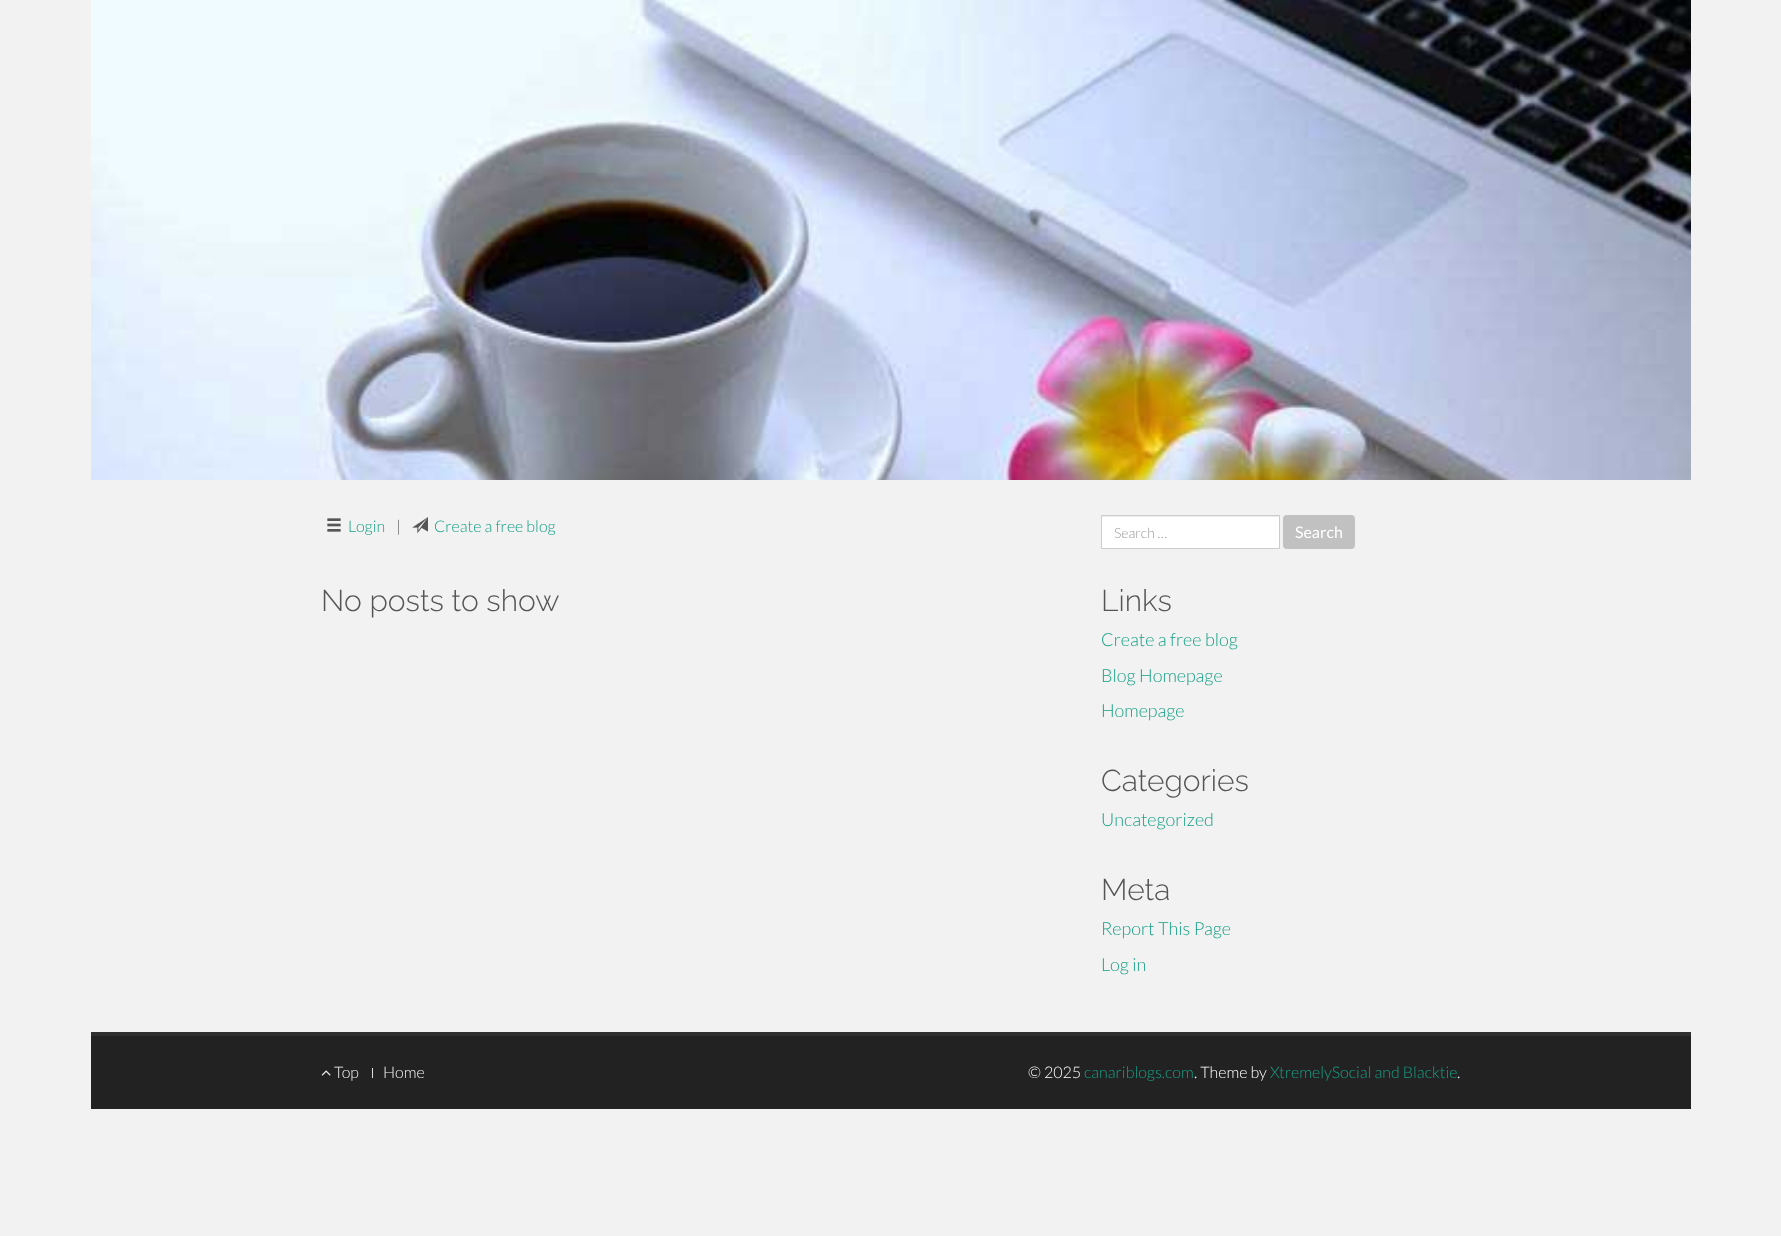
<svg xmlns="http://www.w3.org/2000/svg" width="1781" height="1236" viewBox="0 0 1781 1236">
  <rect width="100%" height="100%" fill="#f2f2f2"/>
  <image x="91" y="0" width="1600" height="480" href="img/1.png"/>
  <image x="327" y="518" width="14" height="14" href="img/2.png"/>
  <image x="412" y="517" width="16" height="17" href="img/3.png"/>
  <path d="M1102 517h177v31H1102z" fill="#fff"/>
  <path d="M1102 516h177v1H1102z" fill="#ececec"/>
  <path d="M1101.5 515.5h178v33H1101.5z" fill="none" stroke="#ccc"/>
  <rect x="1283" y="515" width="72" height="34" rx="4" fill="#c1c1c1"/>
  <path d="M91 1032h1600v4H91z" fill="#2f2f2f"/>
  <path d="M91 1036h1600v73H91z" fill="#222"/>
  <image x="321" y="1070" width="10" height="6" href="img/4.png"/>
  <path d="M372 1068h1v10H372z" fill="#ddd"/>
  <text x="348" y="532" font-family="Lato" font-size="16" font-weight="300" fill="#16a085">Login</text>
  <text x="396" y="532" font-family="Lato" font-size="16" font-weight="300" fill="#555">|</text>
  <text x="434" y="532" font-family="Lato" font-size="16" font-weight="300" fill="#16a085">Create a free blog</text>
  <text x="321" y="611" font-family="Raleway" font-size="30" font-weight="300" fill="#555">No posts to show</text>
  <text x="1114" y="538" font-family="Lato" font-size="14" font-weight="300" fill="#999">Search …</text>
  <text x="1295" y="538" font-family="Lato" font-size="16" fill="#fff">Search</text>
  <text x="1101" y="611" font-family="Raleway" font-size="30" font-weight="300" fill="#555">Links</text>
  <g font-family="Lato" font-size="18" font-weight="300" fill="#16a085">
    <text x="1101" y="646">Create a free blog</text>
    <text x="1101" y="682">Blog Homepage</text>
    <text x="1101" y="717">Homepage</text>
  </g>
  <text x="1101" y="791" font-family="Raleway" font-size="30" font-weight="300" fill="#555">Categories</text>
  <text x="1101" y="826" font-family="Lato" font-size="18" font-weight="300" fill="#16a085">Uncategorized</text>
  <text x="1101" y="900" font-family="Raleway" font-size="30" font-weight="300" fill="#555">Meta</text>
  <g font-family="Lato" font-size="18" font-weight="300" fill="#16a085">
    <text x="1101" y="935">Report This Page</text>
    <text x="1101" y="971">Log in</text>
  </g>
  <g font-family="Lato" font-size="16" font-weight="300" fill="#f2f2f2">
    <text x="334" y="1078">Top</text>
    <text x="383" y="1078">Home</text>
  </g>
  <text x="1028" y="1078" font-family="Lato" font-size="16" font-weight="300" fill="#fff">© 2025</text>
  <text x="1084" y="1078" font-family="Lato" font-size="16" font-weight="300" fill="#16a085">canariblogs.com</text>
  <text x="1194" y="1078" font-family="Lato" font-size="16" font-weight="300" fill="#fff">. Theme by</text>
  <text x="1270" y="1078" font-family="Lato" font-size="16" font-weight="300" fill="#16a085">XtremelySocial and Blacktie</text>
  <text x="1457" y="1078" font-family="Lato" font-size="16" font-weight="300" fill="#fff">.</text>
</svg>
